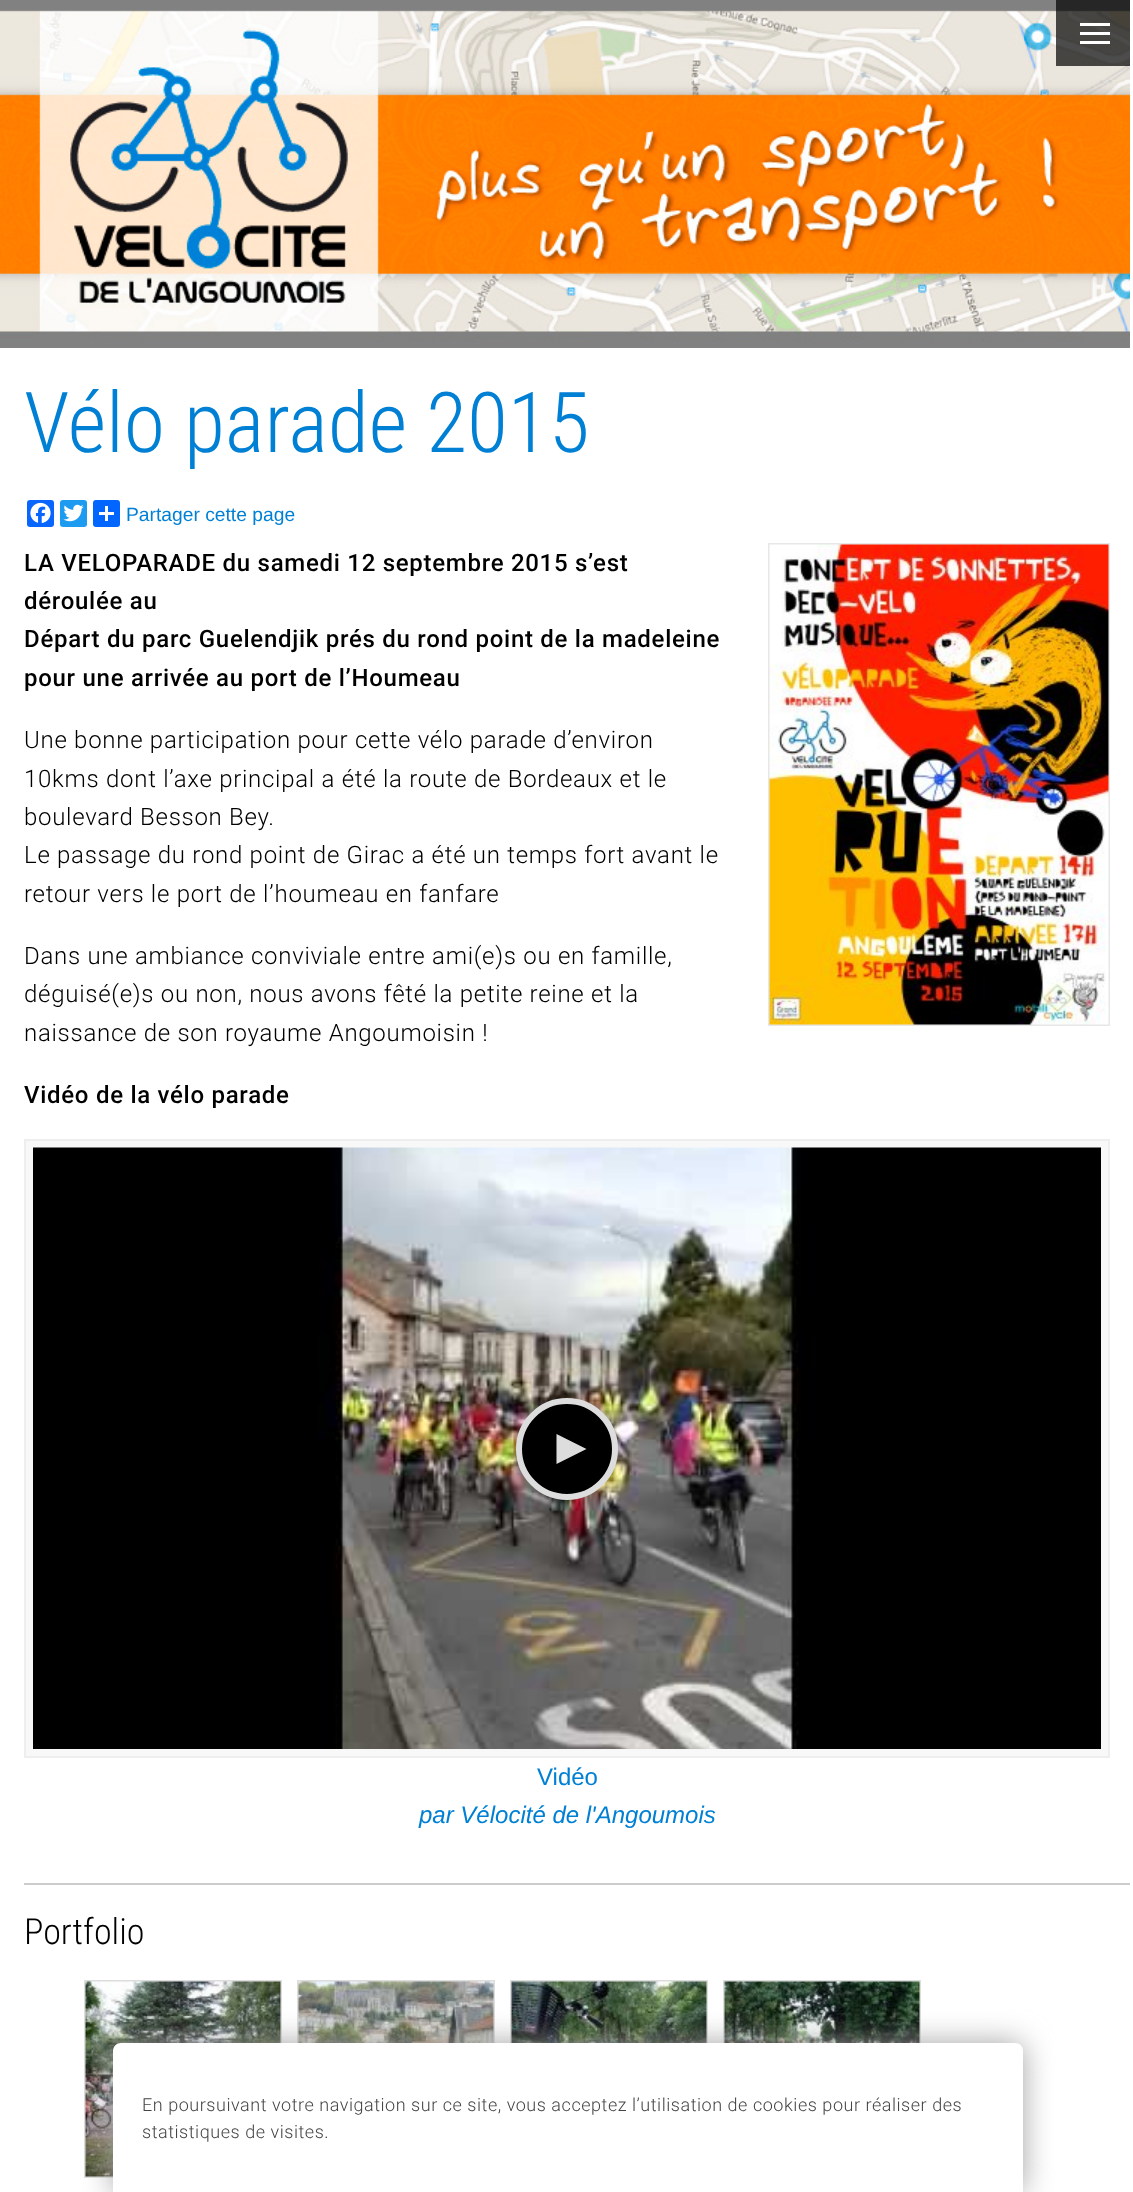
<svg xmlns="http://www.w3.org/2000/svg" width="1133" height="2192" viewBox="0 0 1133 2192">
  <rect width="100%" height="100%" fill="#fff"/>
  <image x="0" y="0" width="1130" height="348" href="img/1.png"/>
  <path d="M1056 0h74v66H1056z" fill="#000000b3"/>
  <path d="M1080 32h30v3H1080z" fill="#fff"/>
  <path d="M1080 23h30v3H1080z" fill="#fff"/>
  <path d="M1080 41h30v3H1080z" fill="#fff"/>
  <rect x="27" y="500" width="27" height="27" rx="3" fill="#0866ff"/>
  <image x="30" y="502" width="21" height="21" href="img/2.png"/>
  <rect x="60" y="500" width="27" height="27" rx="3" fill="#1d9bf0"/>
  <image x="63" y="504" width="21" height="18" href="img/3.png"/>
  <rect x="93" y="500" width="27" height="27" rx="3" fill="#0166ff"/>
  <path d="M105 506h3v15H105z" fill="#fff"/>
  <path d="M99 512h15v3H99z" fill="#fff"/>
  <path d="M769 544h340v481H769z" fill="none" stroke="#e7e7e7" stroke-width="2"/>
  <image x="769" y="544" width="340" height="481" href="img/4.png"/>
  <path d="M25 1140h1084v617H25z" fill="#f8f8f8" stroke="#eee" stroke-width="2"/>
  <image x="33" y="1147" width="1068" height="602" href="img/5.png"/>
  <circle cx="567" cy="1449" r="48" fill="#000" stroke="#ddd" stroke-width="6"/>
  <path d="M556.5 1464V1434L586.5 1449Z" fill="#ddd"/>
  <path d="M24 1883h1109v2H24z" fill="#ccc"/>
  <path d="M85 1981h196v196H85z" fill="none" stroke="#ddd" stroke-width="2"/>
  <image x="85" y="1981" width="196" height="196" href="img/6.png"/>
  <path d="M298 1981h196v196H298z" fill="none" stroke="#ddd" stroke-width="2"/>
  <image x="298" y="1981" width="196" height="62" href="img/7.png"/>
  <path d="M511 1981h196v196H511z" fill="none" stroke="#ddd" stroke-width="2"/>
  <image x="511" y="1981" width="196" height="62" href="img/8.png"/>
  <path d="M724 1981h196v196H724z" fill="none" stroke="#ddd" stroke-width="2"/>
  <image x="724" y="1981" width="196" height="62" href="img/9.png"/>
  <path d="M1130 1883h3v2H1130z" fill="#fff"/>
  <rect x="113" y="2043" width="910" height="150" rx="8" fill="#a1a1a1" filter="blur(15px)"/>
  <path d="M121 2043H1015C1019.5 2043 1023 2046.5 1023 2051V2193H113V2051C113 2046.5 116.5 2043 121 2043Z" fill="#fff"/>
  <text x="24" y="452" font-family="Roboto Condensed" font-size="84" font-weight="300" fill="#0080d4">Vélo parade 2015</text>
  <text x="126" y="521" font-family="Liberation Sans" font-size="19.25" fill="#0080d4">Partager cette page</text>
  <g font-family="Roboto" font-size="24" font-weight="500" letter-spacing="0.72" fill="#000">
    <text x="24" y="571">LA VELOPARADE du samedi 12 septembre 2015 s’est</text>
    <text x="24" y="609">déroulée au</text>
    <text x="24" y="647">Départ du parc Guelendjik prés du rond point de la madeleine</text>
    <text x="24" y="686">pour une arrivée au port de l’Houmeau</text>
  </g>
  <g font-family="Roboto" font-size="24" font-weight="300" letter-spacing="0.72" fill="#000">
    <text x="24" y="748">Une bonne participation pour cette vélo parade d’environ</text>
    <text x="24" y="787">10kms dont l’axe principal a été la route de Bordeaux et le</text>
    <text x="24" y="825">boulevard Besson Bey.</text>
    <text x="24" y="863">Le passage du rond point de Girac a été un temps fort avant le</text>
    <text x="24" y="902">retour vers le port de l’houmeau en fanfare</text>
    <text x="24" y="964">Dans une ambiance conviviale entre ami(e)s ou en famille,</text>
    <text x="24" y="1002">déguisé(e)s ou non, nous avons fêté la petite reine et la</text>
    <text x="24" y="1041">naissance de son royaume Angoumoisin !</text>
  </g>
  <text x="24" y="1103" font-family="Roboto" font-size="24" font-weight="500" letter-spacing="0.72" fill="#000">Vidéo de la vélo parade</text>
  <text x="537" y="1785" font-family="Liberation Sans" font-size="24" fill="#0080d4">Vidéo</text>
  <text x="419" y="1823" font-family="Liberation Sans" font-size="24" font-style="italic" fill="#0080d4">par Vélocité de l'Angoumois</text>
  <text x="24" y="1944" font-family="Roboto Condensed" font-size="36" font-weight="300" fill="#000">Portfolio</text>
  <g font-family="Roboto" font-size="18" font-weight="300" letter-spacing="0.54" fill="#444">
    <text x="142" y="2111">En poursuivant votre navigation sur ce site, vous acceptez l’utilisation de cookies pour réaliser des</text>
    <text x="142" y="2138">statistiques de visites.</text>
  </g>
</svg>
